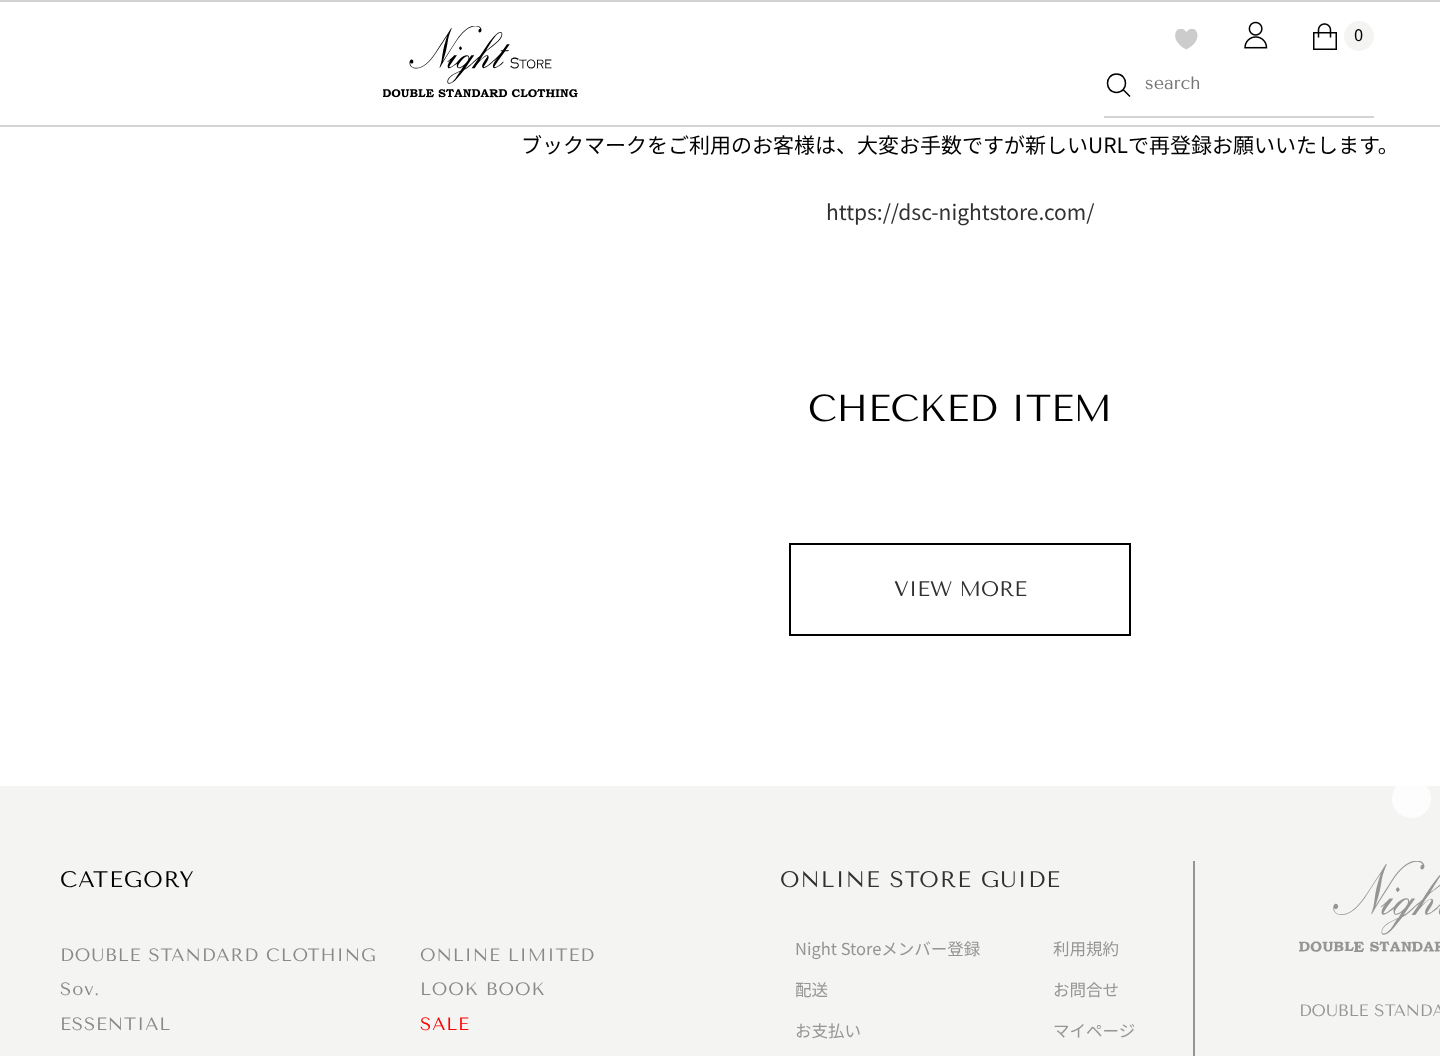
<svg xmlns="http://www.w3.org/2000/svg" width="1440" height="1056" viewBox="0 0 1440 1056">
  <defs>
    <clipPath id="clip1"><path d="M1175 29h24v21H1175z"/></clipPath>
  </defs>
  <rect width="100%" height="100%" fill="#fff"/>
  <path d="M0 0h1440v2H0z" fill="#d3d3d3"/>
  <path d="M0 125h1440v2H0z" fill="#d3d3d3"/>
  <image x="383" y="26" width="195" height="72" href="img/1.png"/>
  <g clip-path="url(#clip1)">
    <path d="M1186.5 49.5C1165.5 38.5 1178.5 21 1186.5 32C1194 21 1207 38.5 1186.5 49.5Z" fill="#ccc"/>
  </g>
  <image x="1244" y="21" width="24" height="28" href="img/2.png"/>
  <image x="1313" y="23" width="24" height="27" href="img/3.png"/>
  <circle cx="1359" cy="36" r="15" fill="#f4f4f3"/>
  <path d="M1104 116h270v2H1104z" fill="#d3d3d3"/>
  <path d="M1116.5 92.5C1128.5 92.5 1128.5 74 1116.5 74C1104.5 74 1104.5 92.5 1116.5 92.5ZM1123 89.5L1130 96.5" fill="none" stroke="#000" stroke-width="1.5"/>
  <path d="M790 544h340v91H790z" fill="none" stroke="#000" stroke-width="2"/>
  <path d="M0 786h1440v270H0z" fill="#f4f4f3"/>
  <path d="M1193 861h2v195H1193z" fill="#959595"/>
  <image x="1299" y="861" width="141" height="91" href="img/4.png"/>
  <circle cx="1411.5" cy="798.5" r="19.5" fill="#ffffffcc"/>
  <text x="1354" y="41" font-family="Noto Sans JP" font-size="16.5" fill="#000">0</text>
  <text x="1145" y="89" font-family="Tenor Sans" font-size="18" fill="#757575">search</text>
  <text x="521" y="153" font-family="Noto Sans JP" font-size="21" fill="#000">ブックマークをご利用のお客様は、大変お手数ですが新しいURLで再登録お願いいたします。</text>
  <text x="826" y="220" font-family="Noto Sans JP" font-size="21" fill="#313131">https://dsc-nightstore.com/</text>
  <text x="808" y="421" font-family="Tenor Sans" font-size="37.5" fill="#000">CHECKED ITEM</text>
  <text x="894" y="596" font-family="Tenor Sans" font-size="21" fill="#313131">VIEW MORE</text>
  <text x="60" y="887" font-family="Tenor Sans" font-size="22.5" letter-spacing="1.1" fill="#000">CATEGORY</text>
  <g font-family="Tenor Sans" font-size="18" letter-spacing="0.9" fill="#898989">
    <text x="60" y="961">DOUBLE STANDARD CLOTHING</text>
    <text x="60" y="995">Sov.</text>
    <text x="60" y="1030">ESSENTIAL</text>
    <text x="420" y="961">ONLINE LIMITED</text>
    <text x="420" y="995">LOOK BOOK</text>
  </g>
  <text x="420" y="1030" font-family="Tenor Sans" font-size="18" letter-spacing="0.9" fill="#f00">SALE</text>
  <text x="780" y="887" font-family="Tenor Sans" font-size="22.5" letter-spacing="1.1" fill="#313131">ONLINE STORE GUIDE</text>
  <g font-family="Noto Sans JP" font-size="16.5" fill="#959595">
    <text x="795" y="955">Night Storeメンバー登録</text>
    <text x="1053" y="955">利用規約</text>
    <text x="795" y="996">配送</text>
    <text x="1053" y="996">お問合せ</text>
    <text x="795" y="1037">お支払い</text>
    <text x="1053" y="1037">マイページ</text>
  </g>
  <text x="1299" y="1016" font-family="Tenor Sans" font-size="16.5" fill="#959595">DOUBLE STANDA</text>
</svg>
